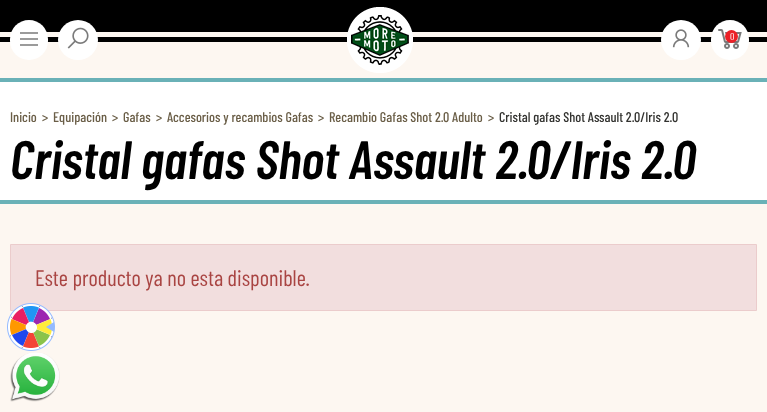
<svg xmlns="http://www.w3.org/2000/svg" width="767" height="412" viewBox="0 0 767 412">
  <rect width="100%" height="100%" fill="#fdf7f1"/>
  <path d="M0 0h767v32H0z" fill="#000"/>
  <path d="M0 78h767v4H0z" fill="#6ab1b7"/>
  <path d="M0 37h767v5H0z" fill="#000"/>
  <rect x="10" y="20" width="38" height="40" rx="19" fill="#fff"/>
  <image x="20" y="32" width="18" height="14" href="img/1.png"/>
  <circle cx="78" cy="40" r="20" fill="#fff"/>
  <image x="67" y="27" width="22" height="22" href="img/2.png"/>
  <image x="347" y="7" width="66" height="66" href="img/3.png"/>
  <circle cx="681" cy="40" r="20" fill="#fff"/>
  <image x="672" y="29" width="18" height="19" href="img/4.png"/>
  <rect x="711" y="20" width="38" height="40" rx="19" fill="#fff"/>
  <image x="718" y="29" width="24" height="20" href="img/5.png"/>
  <circle cx="731.5" cy="36.5" r="6.5" fill="#ec2027"/>
  <path d="M10.5 244.5h746v66H10.5z" fill="#f2dede" stroke="#ebcccc"/>
  <image x="7" y="303" width="48" height="48" href="img/6.png"/>
  <path d="M0 82h767v118H0z" fill="#fff"/>
  <path d="M0 200h767v4H0z" fill="#6ab1b7"/>
  <image x="10" y="352" width="50" height="50" href="img/7.png"/>
  <text x="730" y="40" font-family="Barlow Condensed" font-size="10" fill="#fff">0</text>
  <g font-family="Barlow Condensed" font-size="14" font-weight="500" fill="#6a5e47">
    <text x="10" y="122">Inicio</text>
    <text x="42" y="122">&gt;</text>
    <text x="53" y="122">Equipación</text>
    <text x="112" y="122">&gt;</text>
    <text x="123" y="122">Gafas</text>
    <text x="156" y="122">&gt;</text>
    <text x="167" y="122">Accesorios y recambios Gafas</text>
    <text x="318" y="122">&gt;</text>
    <text x="329" y="122">Recambio Gafas Shot 2.0 Adulto</text>
    <text x="488" y="122">&gt;</text>
  </g>
  <text x="499" y="122" font-family="Barlow Condensed" font-size="14" font-weight="500" fill="#333330">Cristal gafas Shot Assault 2.0/Iris 2.0</text>
  <text x="10" y="179" font-family="Barlow Condensed" font-size="54" font-weight="600" font-style="italic" fill="#000">Cristal gafas Shot Assault 2.0/Iris 2.0</text>
  <text x="35" y="286" font-family="Barlow Condensed" font-size="22.4" fill="#a94442">Este producto ya no esta disponible.</text>
</svg>
